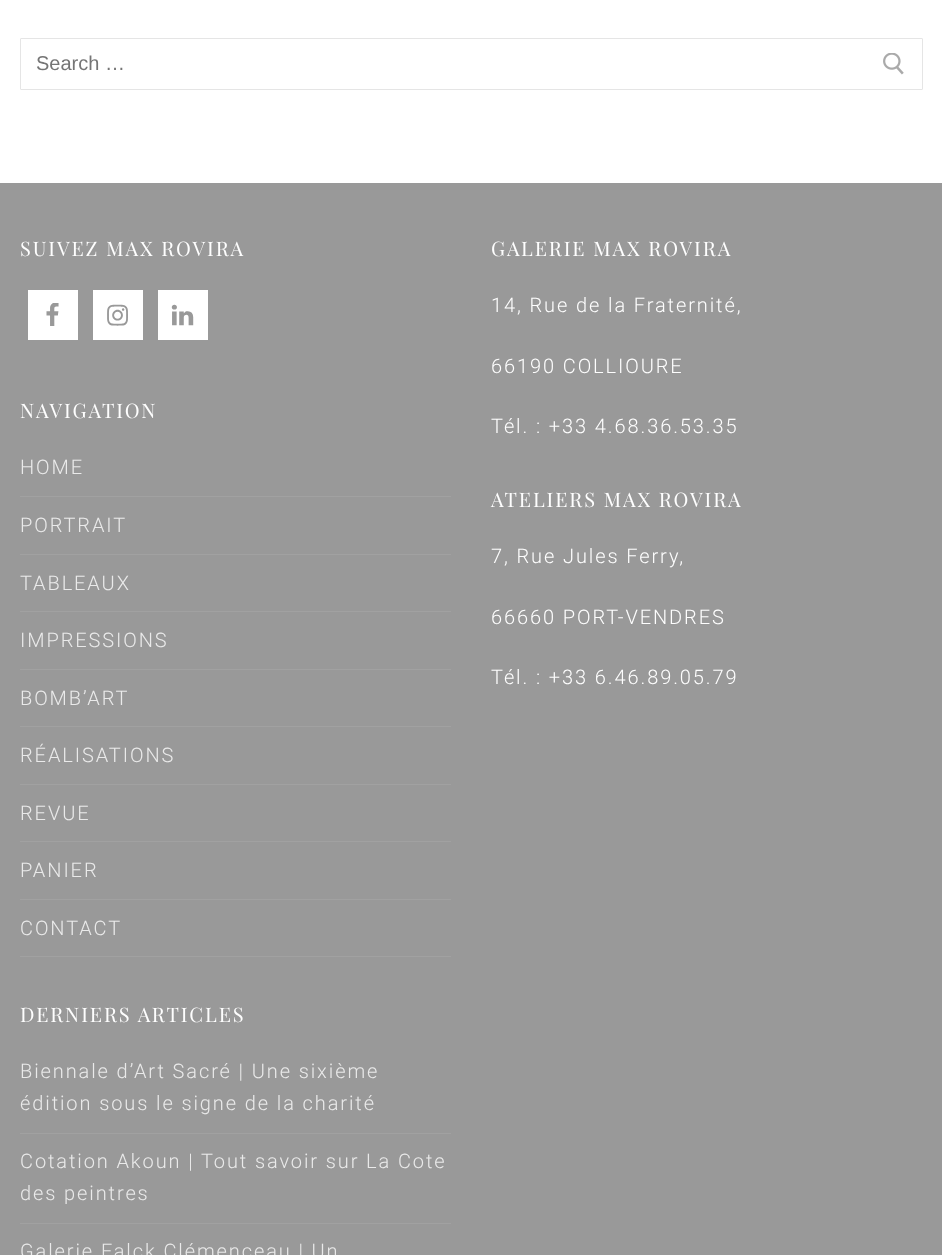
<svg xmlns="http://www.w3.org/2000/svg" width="942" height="1255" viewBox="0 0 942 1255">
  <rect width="100%" height="100%" fill="#fff"/>
  <rect x="20.5" y="38.5" width="902" height="51" rx="0.5" fill="none" stroke="#e5e5e5"/>
  <image x="883" y="53" width="21" height="22" href="img/1.png"/>
  <path d="M0 183h942v1072H0z" fill="#999"/>
  <path d="M28 290h50v50H28z" fill="#fff"/>
  <image x="46" y="303" width="13" height="23" href="img/2.png"/>
  <path d="M93 290h50v50H93z" fill="#fff"/>
  <image x="107" y="304" width="21" height="22" href="img/3.png"/>
  <path d="M158 290h50v50H158z" fill="#fff"/>
  <image x="171" y="304" width="23" height="22" href="img/4.png"/>
  <path d="M20 496h431v1H20z" fill="#a1a1a1"/>
  <path d="M20 554h431v1H20z" fill="#a1a1a1"/>
  <path d="M20 611h431v1H20z" fill="#a1a1a1"/>
  <path d="M20 669h431v1H20z" fill="#a1a1a1"/>
  <path d="M20 726h431v1H20z" fill="#a1a1a1"/>
  <path d="M20 784h431v1H20z" fill="#a1a1a1"/>
  <path d="M20 841h431v1H20z" fill="#a1a1a1"/>
  <path d="M20 899h431v1H20z" fill="#a1a1a1"/>
  <path d="M20 956h431v1H20z" fill="#a1a1a1"/>
  <path d="M20 1133h431v1H20z" fill="#a1a1a1"/>
  <path d="M20 1223h431v1H20z" fill="#a1a1a1"/>
  <text x="36" y="70" font-family="Liberation Sans" font-size="20" fill="#757575">Search …</text>
  <g font-family="Playfair Display" font-size="20" letter-spacing="1.9" fill="#fefefe">
    <text x="20" y="256">SUIVEZ MAX ROVIRA</text>
    <text x="20" y="418">NAVIGATION</text>
  </g>
  <g font-family="Roboto" font-size="20" font-weight="300" letter-spacing="1.9" fill="#eaeaea">
    <text x="20" y="474">HOME</text>
    <text x="20" y="532">PORTRAIT</text>
    <text x="20" y="590">TABLEAUX</text>
    <text x="20" y="647">IMPRESSIONS</text>
    <text x="20" y="705">BOMB’ART</text>
    <text x="20" y="762">RÉALISATIONS</text>
    <text x="20" y="820">REVUE</text>
    <text x="20" y="877">PANIER</text>
    <text x="20" y="935">CONTACT</text>
  </g>
  <text x="491" y="256" font-family="Playfair Display" font-size="20" letter-spacing="1.9" fill="#fefefe">GALERIE MAX ROVIRA</text>
  <g font-family="Roboto" font-size="20" font-weight="300" letter-spacing="1.9" fill="#fefefe">
    <text x="491" y="312">14, Rue de la Fraternité,</text>
    <text x="491" y="373">66190 COLLIOURE</text>
    <text x="491" y="433">Tél. : +33 4.68.36.53.35</text>
  </g>
  <text x="491" y="507" font-family="Playfair Display" font-size="20" letter-spacing="1.9" fill="#fefefe">ATELIERS MAX ROVIRA</text>
  <g font-family="Roboto" font-size="20" font-weight="300" letter-spacing="1.9" fill="#fefefe">
    <text x="491" y="563">7, Rue Jules Ferry,</text>
    <text x="491" y="624">66660 PORT-VENDRES</text>
    <text x="491" y="684">Tél. : +33 6.46.89.05.79</text>
  </g>
  <text x="20" y="1022" font-family="Playfair Display" font-size="20" letter-spacing="1.9" fill="#fefefe">DERNIERS ARTICLES</text>
  <g font-family="Roboto" font-size="20" font-weight="300" letter-spacing="1.9" fill="#eaeaea">
    <text x="20" y="1078">Biennale d’Art Sacré | Une sixième</text>
    <text x="20" y="1110">édition sous le signe de la charité</text>
    <text x="20" y="1168">Cotation Akoun | Tout savoir sur La Cote</text>
    <text x="20" y="1200">des peintres</text>
    <text x="20" y="1258">Galerie Falck Clémenceau | Un</text>
  </g>
</svg>
